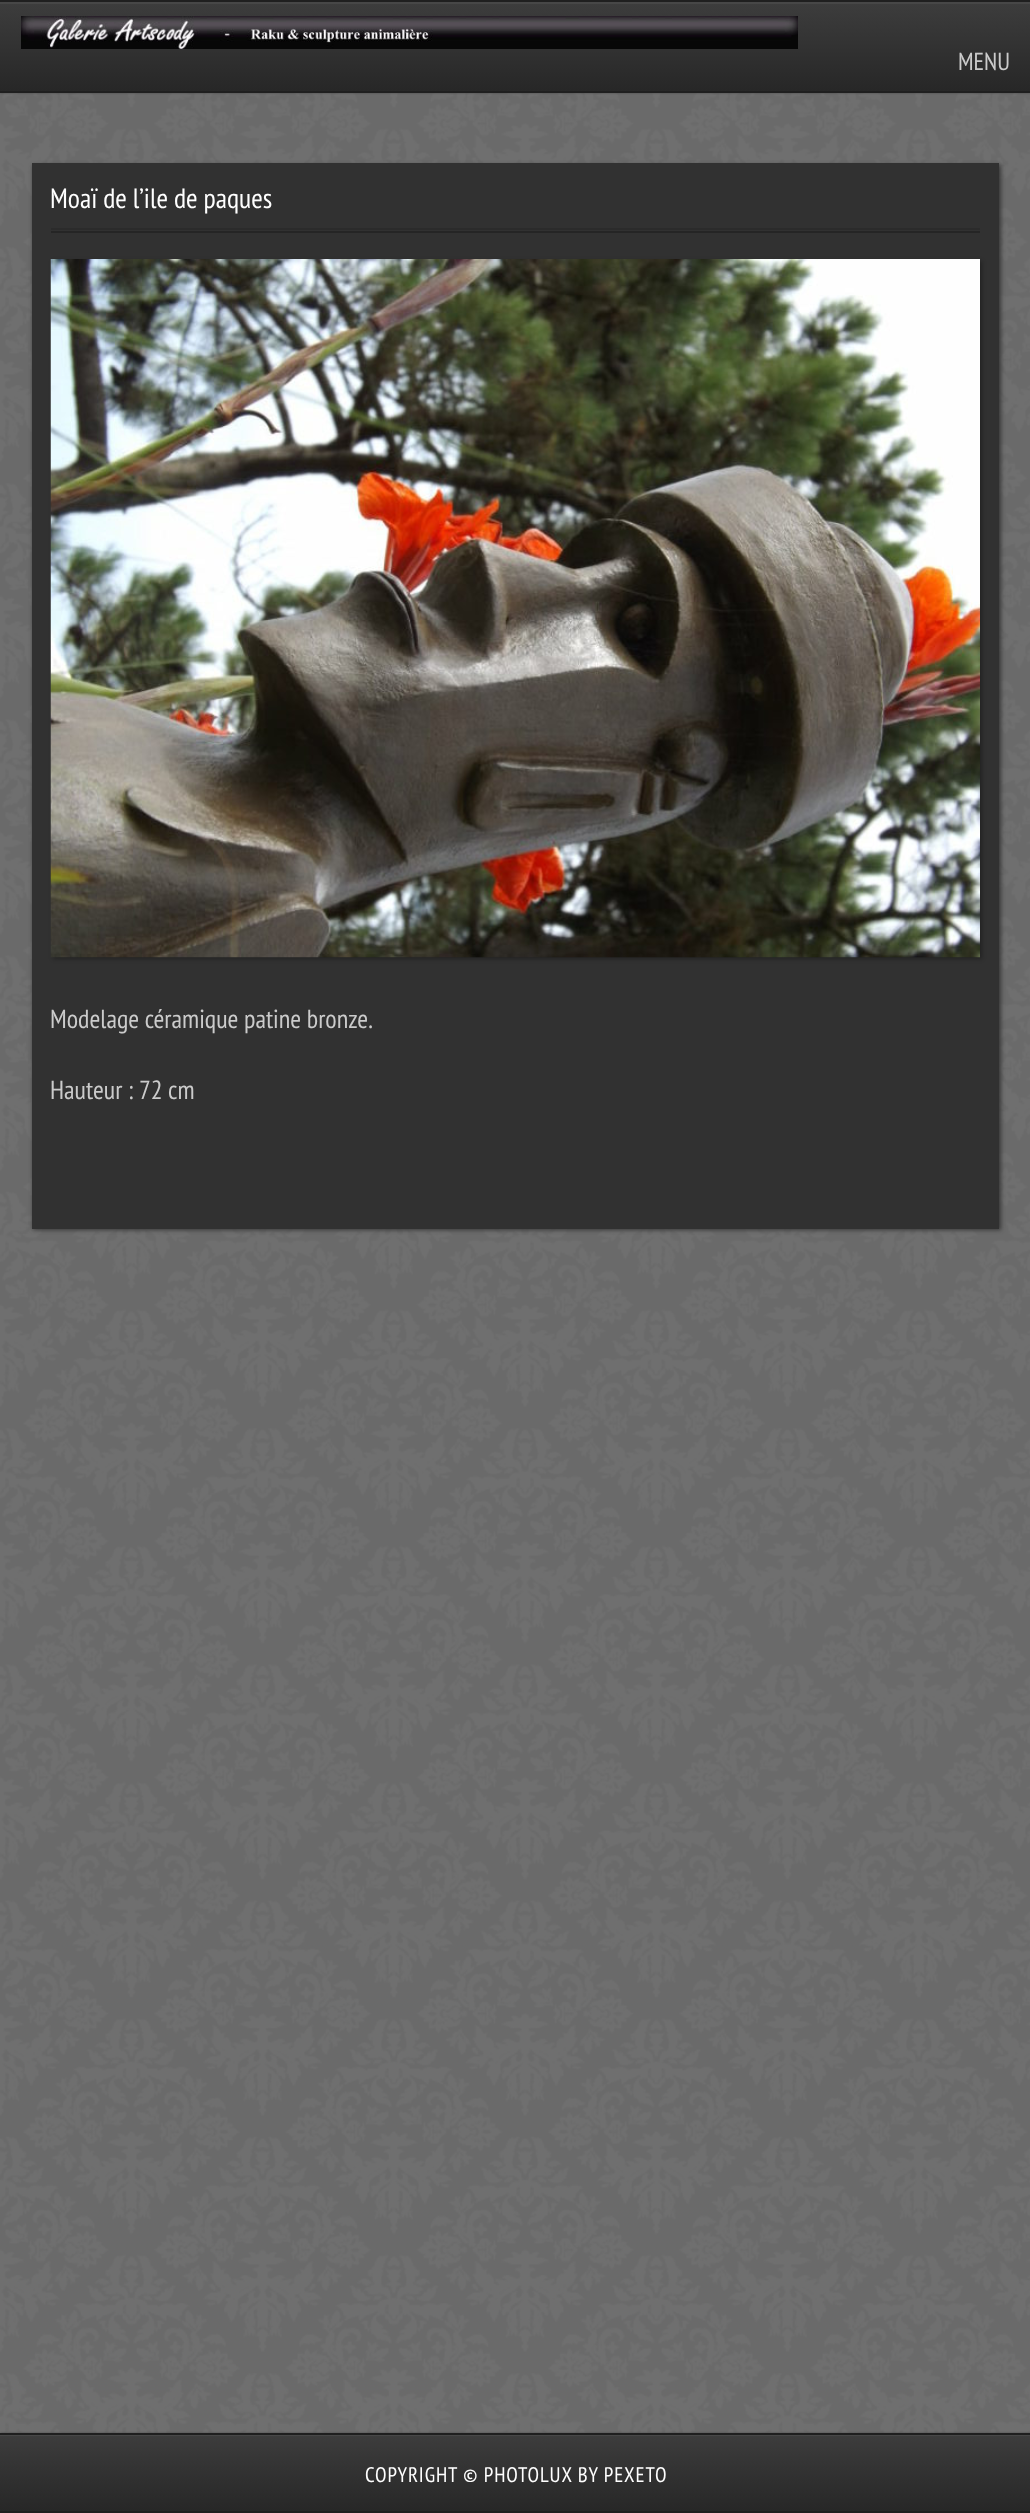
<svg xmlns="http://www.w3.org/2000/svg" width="1030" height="2513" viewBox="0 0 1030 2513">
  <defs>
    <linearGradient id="g1" gradientUnits="userSpaceOnUse" x1="515" y1="1.7" x2="515" y2="91"><stop offset="0" stop-color="#3d3d3d"/><stop offset="1" stop-color="#272727"/></linearGradient>
    <linearGradient id="g2" gradientUnits="userSpaceOnUse" x1="515" y1="2434" x2="515" y2="2511"><stop offset="0" stop-color="#3d3d3d"/><stop offset="1" stop-color="#272727"/></linearGradient>
  </defs>
  <rect width="100%" height="100%" fill="#6a6a6a"/>
  <image x="0" y="93" width="1030" height="2340" href="img/1.png"/>
  <path d="M0 0h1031v93H0z" fill="#0000004d" filter="blur(1px)"/>
  <path d="M0 4h1030v87H0z" fill="url(#g1)"/>
  <path d="M0 2h1030v2H0z" fill="#474747"/>
  <path d="M0 0h1030v2H0z" fill="#1f1f1f"/>
  <path d="M0 91h1030v2H0z" fill="#1f1f1f"/>
  <image x="21" y="16" width="777" height="33" href="img/2.png"/>
  <path d="M33 165h968v1065H33z" fill="#2b2b2bcc" filter="blur(2px)"/>
  <path d="M32 163h967v1066H32z" fill="#313131"/>
  <path d="M51 228h929v2H51z" fill="#2b2b2b"/>
  <path d="M51 231h929v2H51z" fill="#252525"/>
  <path d="M53 261h929v698H53z" fill="#0000004d" filter="blur(2px)"/>
  <image x="50" y="259" width="930" height="699" href="img/3.png"/>
  <path d="M0 2433h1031v80H0z" fill="#0000004d" filter="blur(1px)"/>
  <path d="M0 2436h1030v75H0z" fill="url(#g2)"/>
  <path d="M0 2435h1030v1H0z" fill="#474747"/>
  <path d="M0 2433h1030v2H0z" fill="#1f1f1f"/>
  <path d="M0 2511h1030v2H0z" fill="#1f1f1f"/>
  <text x="958" y="70" font-family="PT Sans Narrow" font-size="24.5" fill="#cbcbcb">MENU</text>
  <text x="50" y="208" font-family="PT Sans Narrow" font-size="28" fill="#fff">Moaï de l’ile de paques</text>
  <g font-family="PT Sans Narrow" font-size="26.25" fill="#cbcbcb">
    <text x="50" y="1028">Modelage céramique patine bronze.</text>
    <text x="50" y="1099">Hauteur : 72 cm</text>
  </g>
  <text x="365" y="2482" font-family="PT Sans Narrow" font-size="21" letter-spacing="0.9" fill="#fff">COPYRIGHT © PHOTOLUX BY PEXETO</text>
</svg>
